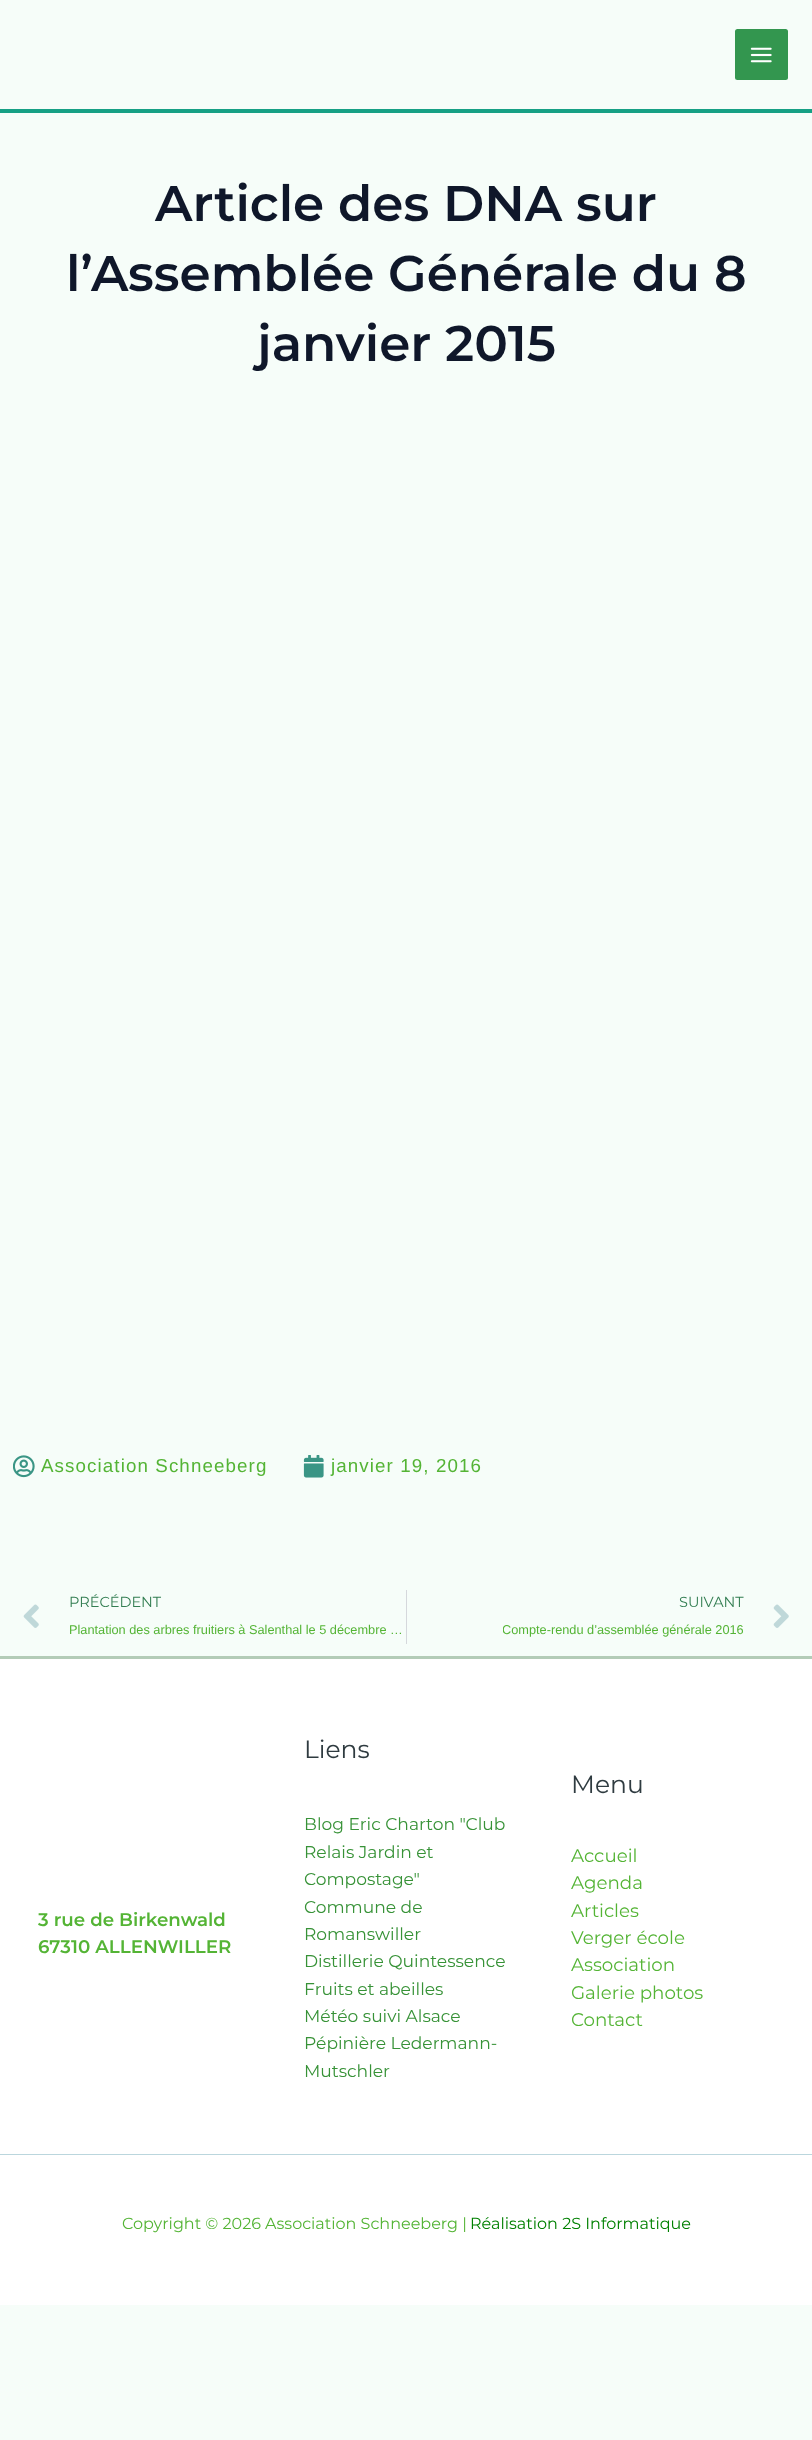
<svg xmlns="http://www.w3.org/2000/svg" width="812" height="2440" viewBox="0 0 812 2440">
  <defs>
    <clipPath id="clip1"><path d="M503 1616h241v28H503z"/></clipPath>
  </defs>
  <rect width="100%" height="100%" fill="#f6fdf9"/>
  <path d="M0 109h812v4H0z" fill="#16a085"/>
  <rect x="735" y="29" width="53" height="51" rx="2.5" fill="#33964f"/>
  <image x="750" y="47" width="22" height="16" href="img/1.png"/>
  <image x="13" y="1455" width="22" height="23" href="img/2.png"/>
  <image x="303" y="1455" width="21" height="23" href="img/3.png"/>
  <image x="23" y="1604" width="16" height="24" href="img/4.png"/>
  <path d="M406 1590h1v54H406z" fill="#d5d8dc"/>
  <image x="773" y="1604" width="16" height="24" href="img/5.png"/>
  <path d="M0 1659h812v646H0z" fill="#fff"/>
  <path d="M0 1656h812v3H0z" fill="#b4ccb8"/>
  <path d="M0 2154h812v1H0z" fill="#bbd6dd"/>
  <g font-family="Montserrat" font-size="50" font-weight="600" fill="#0f172a">
    <text x="155" y="221">Article des DNA sur</text>
    <text x="66" y="291">l’Assemblée Générale du 8</text>
    <text x="257" y="361">janvier 2015</text>
  </g>
  <g font-family="Liberation Sans" font-size="18.75" letter-spacing="1.1" fill="#54b435">
    <text x="41" y="1472">Association Schneeberg</text>
    <text x="331" y="1472">janvier 19, 2016</text>
  </g>
  <text x="69" y="1607" font-family="Montserrat" font-size="14.5" fill="#337e52">PRÉCÉDENT</text>
  <text x="69" y="1634" font-family="Liberation Sans" font-size="12.75" fill="#54b435">Plantation des arbres fruitiers à Salenthal le 5 décembre …</text>
  <text x="679" y="1607" font-family="Montserrat" font-size="14.5" fill="#337e52">SUIVANT</text>
  <g clip-path="url(#clip1)">
    <text x="502" y="1634" font-family="Liberation Sans" font-size="12.75" fill="#54b435">Compte-rendu d’assemblée générale 2016</text>
  </g>
  <g font-family="Montserrat" font-size="18.25" font-weight="600" fill="#54b435">
    <text x="38" y="1926">3 rue de Birkenwald</text>
    <text x="38" y="1953">67310 ALLENWILLER</text>
  </g>
  <text x="304" y="1758" font-family="Montserrat" font-size="25" fill="#2f3b40">Liens</text>
  <g font-family="Montserrat" font-size="17.1" fill="#379237">
    <text x="304" y="1830">Blog Eric Charton "Club</text>
    <text x="304" y="1858">Relais Jardin et</text>
    <text x="304" y="1885">Compostage"</text>
    <text x="304" y="1913">Commune de</text>
    <text x="304" y="1940">Romanswiller</text>
    <text x="304" y="1967">Distillerie Quintessence</text>
    <text x="304" y="1995">Fruits et abeilles</text>
    <text x="304" y="2022">Météo suivi Alsace</text>
    <text x="304" y="2049">Pépinière Ledermann-</text>
    <text x="304" y="2077">Mutschler</text>
  </g>
  <text x="571" y="1793" font-family="Montserrat" font-size="25" fill="#2f3b40">Menu</text>
  <g font-family="Montserrat" font-size="18.25" fill="#54b435">
    <text x="571" y="1862">Accueil</text>
    <text x="571" y="1889">Agenda</text>
    <text x="571" y="1917">Articles</text>
    <text x="571" y="1944">Verger école</text>
    <text x="571" y="1971">Association</text>
    <text x="571" y="1999">Galerie photos</text>
    <text x="571" y="2026">Contact</text>
  </g>
  <text x="122" y="2229" font-family="Montserrat" font-size="16" fill="#54b435">Copyright © 2026 Association Schneeberg |</text>
  <text x="470" y="2229" font-family="Montserrat" font-size="16" fill="#008000">Réalisation 2S Informatique</text>
</svg>
